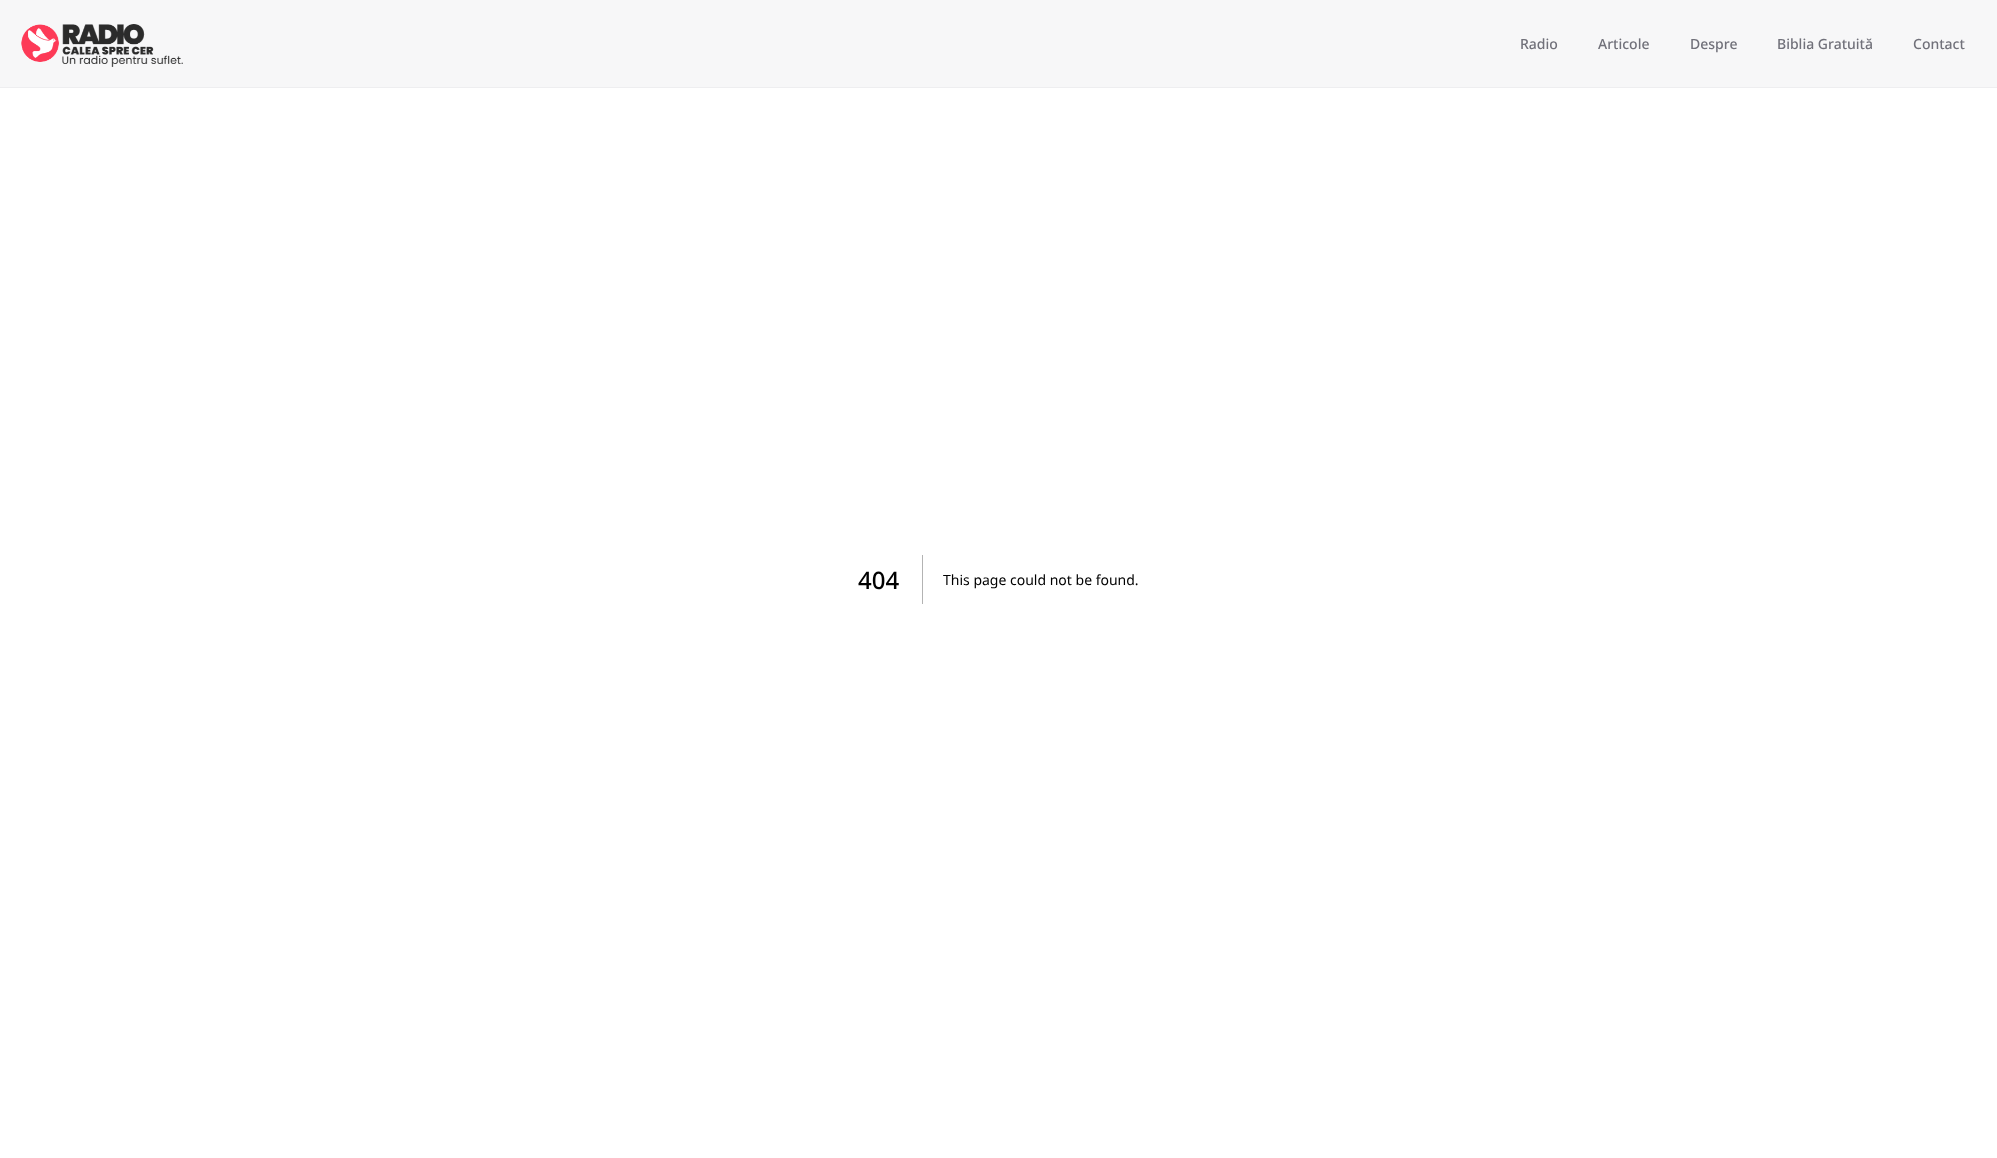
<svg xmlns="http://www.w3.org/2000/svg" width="1997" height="1158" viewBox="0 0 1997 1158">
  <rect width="100%" height="100%" fill="#fff"/>
  <path d="M0 0h1997v87H0z" fill="#f7f7f8"/>
  <path d="M0 87h1997v1H0z" fill="#eeeef0"/>
  <image x="21" y="24" width="162" height="43" href="img/1.png"/>
  <path d="M922 555h1v49H922z" fill="#b3b3b3"/>
  <g font-family="Noto Sans" font-size="14" font-weight="500" fill="#71717a">
    <text x="1520" y="49">Radio</text>
    <text x="1598" y="49">Articole</text>
    <text x="1690" y="49">Despre</text>
    <text x="1777" y="49">Biblia Gratuită</text>
    <text x="1913" y="49">Contact</text>
  </g>
  <text x="858" y="589" font-family="Noto Sans" font-size="24" font-weight="500" fill="#000">404</text>
  <text x="943" y="585" font-family="Noto Sans" font-size="14" fill="#000">This page could not be found.</text>
</svg>
